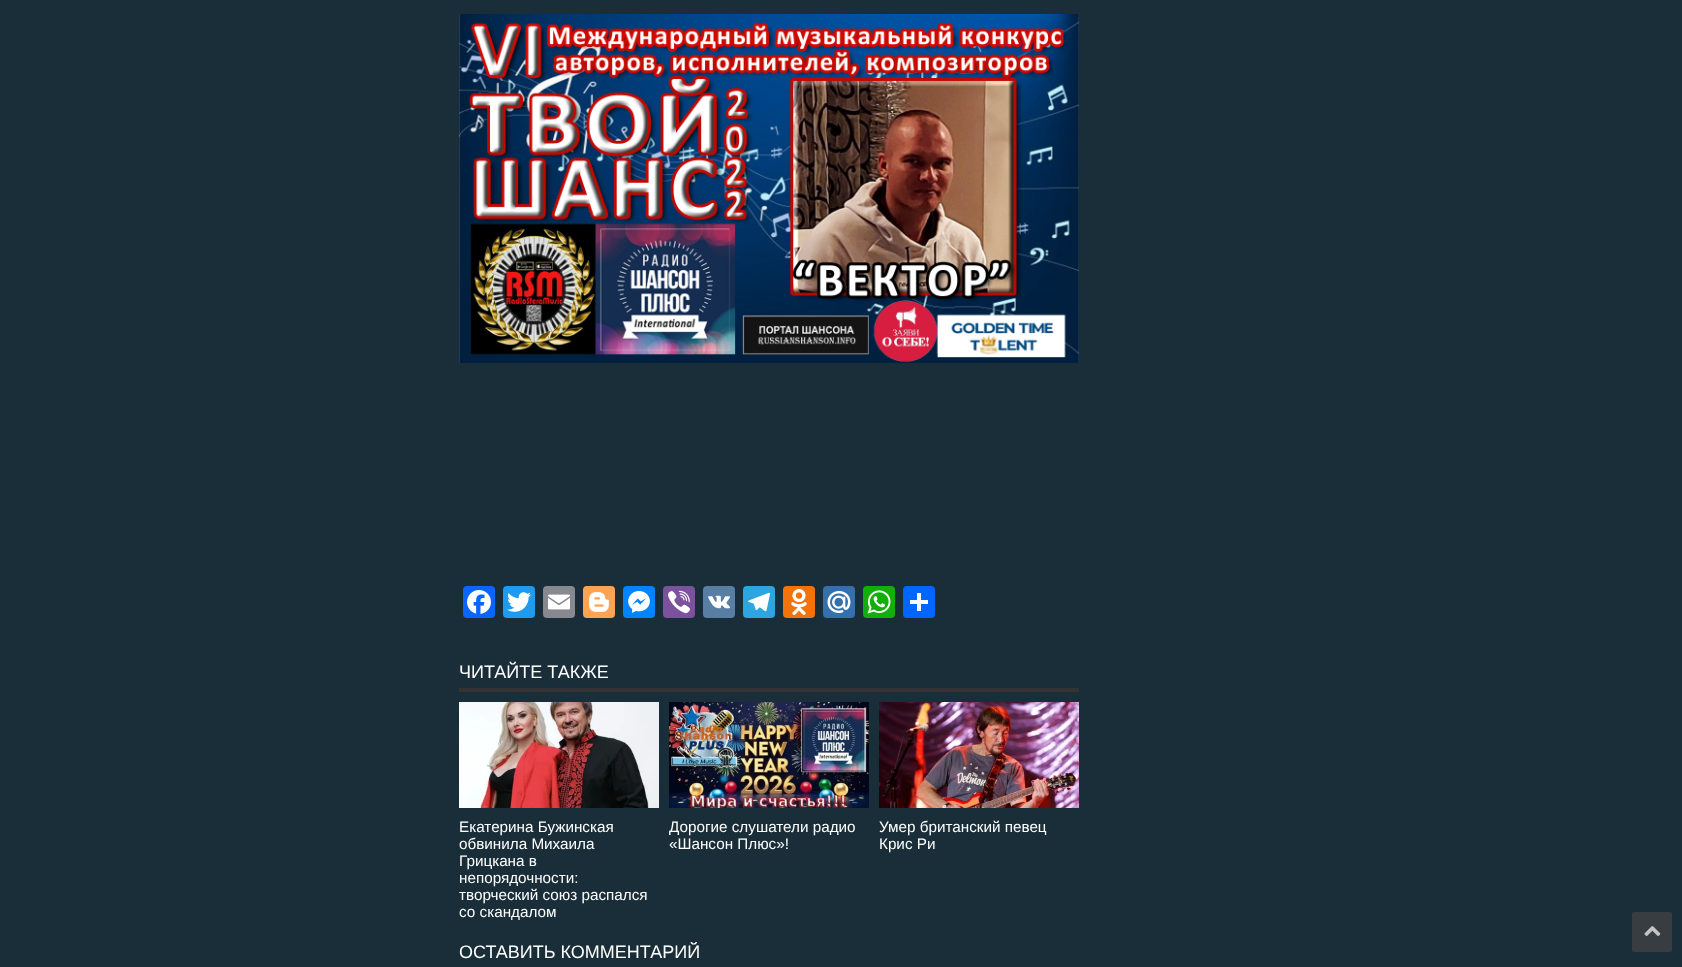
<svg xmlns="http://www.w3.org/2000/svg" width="1682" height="967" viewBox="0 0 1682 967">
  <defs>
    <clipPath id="clip1"><path d="M459 942h620v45H459z"/></clipPath>
  </defs>
  <rect width="100%" height="100%" fill="#192e38"/>
  <image x="459" y="14" width="620" height="349" href="img/1.png"/>
  <rect x="463" y="586" width="32" height="32" rx="4" fill="#0866ff"/>
  <image x="467" y="590" width="24" height="24" href="img/2.png"/>
  <rect x="503" y="586" width="32" height="32" rx="4" fill="#1d9bf0"/>
  <image x="507" y="592" width="24" height="20" href="img/3.png"/>
  <rect x="543" y="586" width="32" height="32" rx="4" fill="#888990"/>
  <image x="548" y="594" width="22" height="16" href="img/4.png"/>
  <rect x="583" y="586" width="32" height="32" rx="4" fill="#fda352"/>
  <image x="589" y="592" width="20" height="20" href="img/5.png"/>
  <rect x="623" y="586" width="32" height="32" rx="4" fill="#0084ff"/>
  <image x="628" y="591" width="22" height="22" href="img/6.png"/>
  <rect x="663" y="586" width="32" height="32" rx="4" fill="#7c529e"/>
  <image x="668" y="590" width="22" height="24" href="img/7.png"/>
  <rect x="703" y="586" width="32" height="32" rx="4" fill="#587ea3"/>
  <image x="708" y="595" width="22" height="14" href="img/8.png"/>
  <rect x="743" y="586" width="32" height="32" rx="4" fill="#2ca5e0"/>
  <image x="748" y="592" width="22" height="20" href="img/9.png"/>
  <rect x="783" y="586" width="32" height="32" rx="4" fill="#f2720c"/>
  <image x="791" y="589" width="16" height="26" href="img/10.png"/>
  <rect x="823" y="586" width="32" height="32" rx="4" fill="#356fac"/>
  <image x="827" y="591" width="24" height="22" href="img/11.png"/>
  <rect x="863" y="586" width="32" height="32" rx="4" fill="#12af0a"/>
  <image x="867" y="590" width="24" height="24" href="img/12.png"/>
  <rect x="903" y="586" width="32" height="32" rx="4" fill="#0166ff"/>
  <path d="M917 593h4v18H917z" fill="#fff"/>
  <path d="M910 600h18v4H910z" fill="#fff"/>
  <path d="M459 688h620v4H459z" fill="#333"/>
  <image x="459" y="702" width="200" height="106" href="img/13.png"/>
  <image x="669" y="702" width="200" height="106" href="img/14.png"/>
  <image x="879" y="702" width="200" height="106" href="img/15.png"/>
  <rect x="1632" y="912" width="40" height="40" rx="2" fill="#373d40"/>
  <image x="1644" y="926" width="17" height="10" href="img/16.png"/>
  <text x="459" y="678" font-family="Liberation Sans" font-size="18" fill="#fff">ЧИТАЙТЕ ТАКЖЕ</text>
  <g font-family="Liberation Sans" font-size="15.25" fill="#fff">
    <text x="459" y="832">Екатерина Бужинская</text>
    <text x="459" y="849">обвинила Михаила</text>
    <text x="459" y="866">Грицкана в</text>
    <text x="459" y="883">непорядочности:</text>
    <text x="459" y="900">творческий союз распался</text>
    <text x="459" y="917">со скандалом</text>
    <text x="669" y="832">Дорогие слушатели радио</text>
    <text x="669" y="849">«Шансон Плюс»!</text>
    <text x="879" y="832">Умер британский певец</text>
    <text x="879" y="849">Крис Ри</text>
  </g>
  <g clip-path="url(#clip1)">
    <text x="459" y="958" font-family="Liberation Sans" font-size="18" fill="#fff">ОСТАВИТЬ КОММЕНТАРИЙ</text>
  </g>
</svg>
